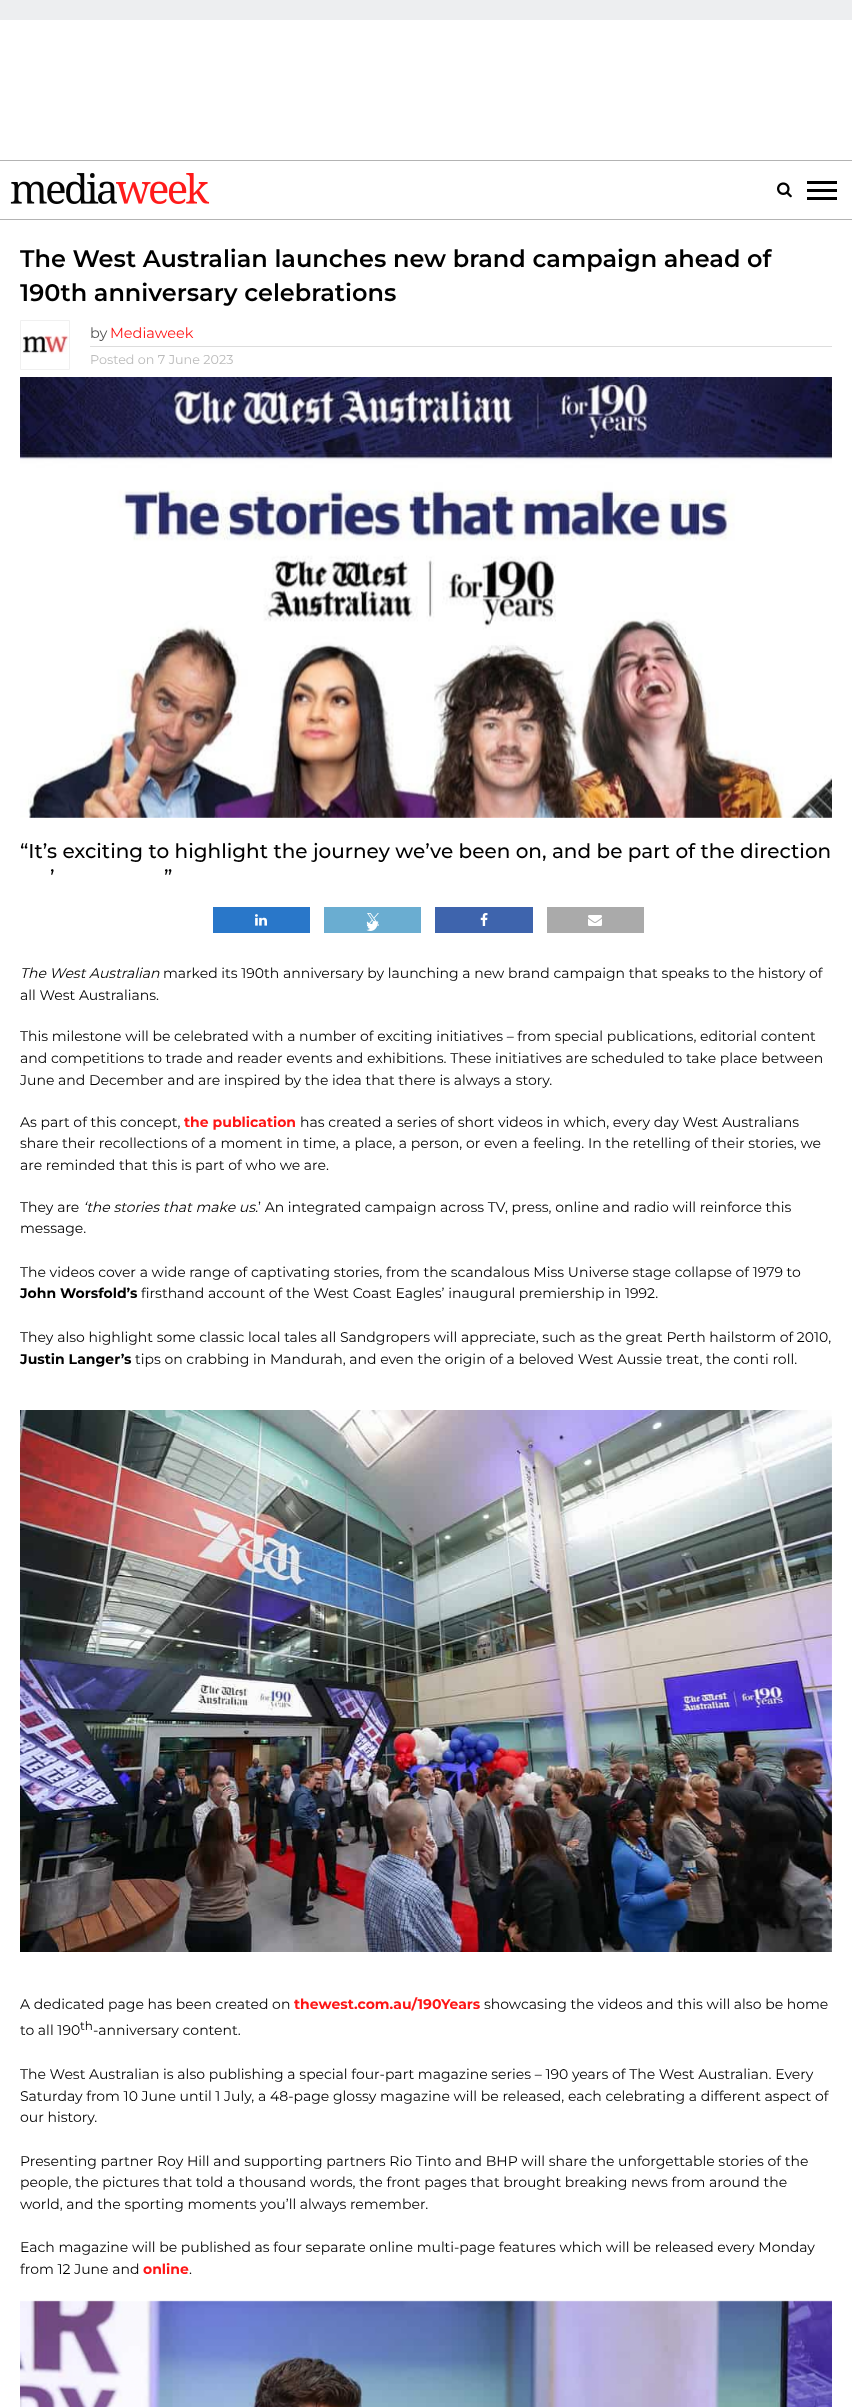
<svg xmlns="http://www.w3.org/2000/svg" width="852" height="2407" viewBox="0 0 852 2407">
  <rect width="100%" height="100%" fill="#edeef0"/>
  <path d="M0 20h852v2387H0z" fill="#fff"/>
  <path d="M0 160h852v1H0z" fill="#b3b3b3"/>
  <path d="M0 219h852v1H0z" fill="#b3b3b3"/>
  <image x="10" y="173" width="200" height="31" href="img/1.png"/>
  <image x="777" y="182" width="15" height="16" href="img/2.png"/>
  <path d="M807 181h30v3H807z" fill="#000"/>
  <path d="M807 189h30v3H807z" fill="#000"/>
  <path d="M807 197h30v3H807z" fill="#000"/>
  <path d="M20.5 320.5h49v49H20.5z" fill="none" stroke="#f0f0f0"/>
  <image x="21" y="335" width="48" height="19" href="img/3.png"/>
  <path d="M90 346h742v1H90z" fill="#ddd"/>
  <image x="20" y="377" width="812" height="441" href="img/4.png"/>
  <path d="M213 907h97v26H213z" fill="#2977c9"/>
  <image x="255" y="914" width="12" height="12" href="img/5.png"/>
  <path d="M324 907h97v26H324z" fill="#6aadd1"/>
  <image x="367" y="913" width="12" height="13" href="img/6.png"/>
  <image x="366" y="921" width="13" height="10" href="img/7.png"/>
  <path d="M435 907h98v26H435z" fill="#3e64ad"/>
  <image x="480" y="913" width="8" height="13" href="img/8.png"/>
  <path d="M547 907h97v26H547z" fill="#aaa"/>
  <image x="588" y="915" width="14" height="11" href="img/9.png"/>
  <image x="20" y="1410" width="812" height="542" href="img/10.png"/>
  <image x="20" y="2300" width="812" height="107" href="img/11.png"/>
  <g font-family="Montserrat" font-size="24" font-weight="600" fill="#000">
    <text x="20" y="267">The West Australian launches new brand campaign ahead of</text>
    <text x="20" y="301">190th anniversary celebrations</text>
  </g>
  <text x="90" y="338" font-family="Montserrat" font-size="14.5" fill="#555">by</text>
  <text x="110" y="338" font-family="Montserrat" font-size="14.5" fill="#ff1616">Mediaweek</text>
  <text x="90" y="364" font-family="Montserrat" font-size="12.75" fill="#bbb">Posted on 7 June 2023</text>
  <g font-family="Montserrat" font-size="20" font-weight="500" fill="#000">
    <text x="20" y="858">“It’s exciting to highlight the journey we’ve been on, and be part of the direction</text>
    <text x="50" y="884">’</text>
    <text x="164" y="884">”</text>
  </g>
  <text x="20" y="978" font-family="Montserrat" font-size="14" font-style="italic" fill="#000">The West Australian</text>
  <g font-family="Montserrat" font-size="14" fill="#000">
    <text x="163" y="978">marked its 190th anniversary by launching a new brand campaign that speaks to the history of</text>
    <text x="20" y="1000">all West Australians.</text>
    <text x="20" y="1041">This milestone will be celebrated with a number of exciting initiatives – from special publications, editorial content</text>
    <text x="20" y="1063">and competitions to trade and reader events and exhibitions. These initiatives are scheduled to take place between</text>
    <text x="20" y="1085">June and December and are inspired by the idea that there is always a story.</text>
    <text x="20" y="1127">As part of this concept,</text>
  </g>
  <text x="184" y="1127" font-family="Montserrat" font-size="14" font-weight="bold" fill="#ff1616">the publication</text>
  <g font-family="Montserrat" font-size="14" fill="#000">
    <text x="300" y="1127">has created a series of short videos in which, every day West Australians</text>
    <text x="20" y="1148">share their recollections of a moment in time, a place, a person, or even a feeling. In the retelling of their stories, we</text>
    <text x="20" y="1170">are reminded that this is part of who we are.</text>
    <text x="20" y="1212">They are</text>
  </g>
  <text x="83" y="1212" font-family="Montserrat" font-size="14" font-style="italic" fill="#000">‘the stories that make us.</text>
  <g font-family="Montserrat" font-size="14" fill="#000">
    <text x="258" y="1212">’ An integrated campaign across TV, press, online and radio will reinforce this</text>
    <text x="20" y="1233">message.</text>
    <text x="20" y="1277">The videos cover a wide range of captivating stories, from the scandalous Miss Universe stage collapse of 1979 to</text>
  </g>
  <text x="20" y="1298" font-family="Montserrat" font-size="14" font-weight="bold" fill="#000">John Worsfold’s</text>
  <g font-family="Montserrat" font-size="14" fill="#000">
    <text x="141" y="1298">firsthand account of the West Coast Eagles’ inaugural premiership in 1992.</text>
    <text x="20" y="1342">They also highlight some classic local tales all Sandgropers will appreciate, such as the great Perth hailstorm of 2010,</text>
  </g>
  <text x="20" y="1364" font-family="Montserrat" font-size="14" font-weight="bold" fill="#000">Justin Langer’s</text>
  <g font-family="Montserrat" font-size="14" fill="#000">
    <text x="135" y="1364">tips on crabbing in Mandurah, and even the origin of a beloved West Aussie treat, the conti roll.</text>
    <text x="20" y="2009">A dedicated page has been created on</text>
  </g>
  <text x="294" y="2009" font-family="Montserrat" font-size="14" font-weight="bold" fill="#ff1616">thewest.com.au/190Years</text>
  <g font-family="Montserrat" font-size="14" fill="#000">
    <text x="484" y="2009">showcasing the videos and this will also be home</text>
    <text x="20" y="2035">to all 190</text>
  </g>
  <text x="80" y="2030" font-family="Montserrat" font-size="12" fill="#000">th</text>
  <g font-family="Montserrat" font-size="14" fill="#000">
    <text x="93" y="2035">-anniversary content.</text>
    <text x="20" y="2079">The West Australian is also publishing a special four-part magazine series – 190 years of The West Australian. Every</text>
    <text x="20" y="2101">Saturday from 10 June until 1 July, a 48-page glossy magazine will be released, each celebrating a different aspect of</text>
    <text x="20" y="2122">our history.</text>
    <text x="20" y="2166">Presenting partner Roy Hill and supporting partners Rio Tinto and BHP will share the unforgettable stories of the</text>
    <text x="20" y="2187">people, the pictures that told a thousand words, the front pages that brought breaking news from around the</text>
    <text x="20" y="2209">world, and the sporting moments you’ll always remember.</text>
    <text x="20" y="2252">Each magazine will be published as four separate online multi-page features which will be released every Monday</text>
    <text x="20" y="2274">from 12 June and</text>
  </g>
  <text x="143" y="2274" font-family="Montserrat" font-size="14" font-weight="bold" fill="#ff1616">online</text>
  <text x="189" y="2274" font-family="Montserrat" font-size="14" fill="#000">.</text>
</svg>
